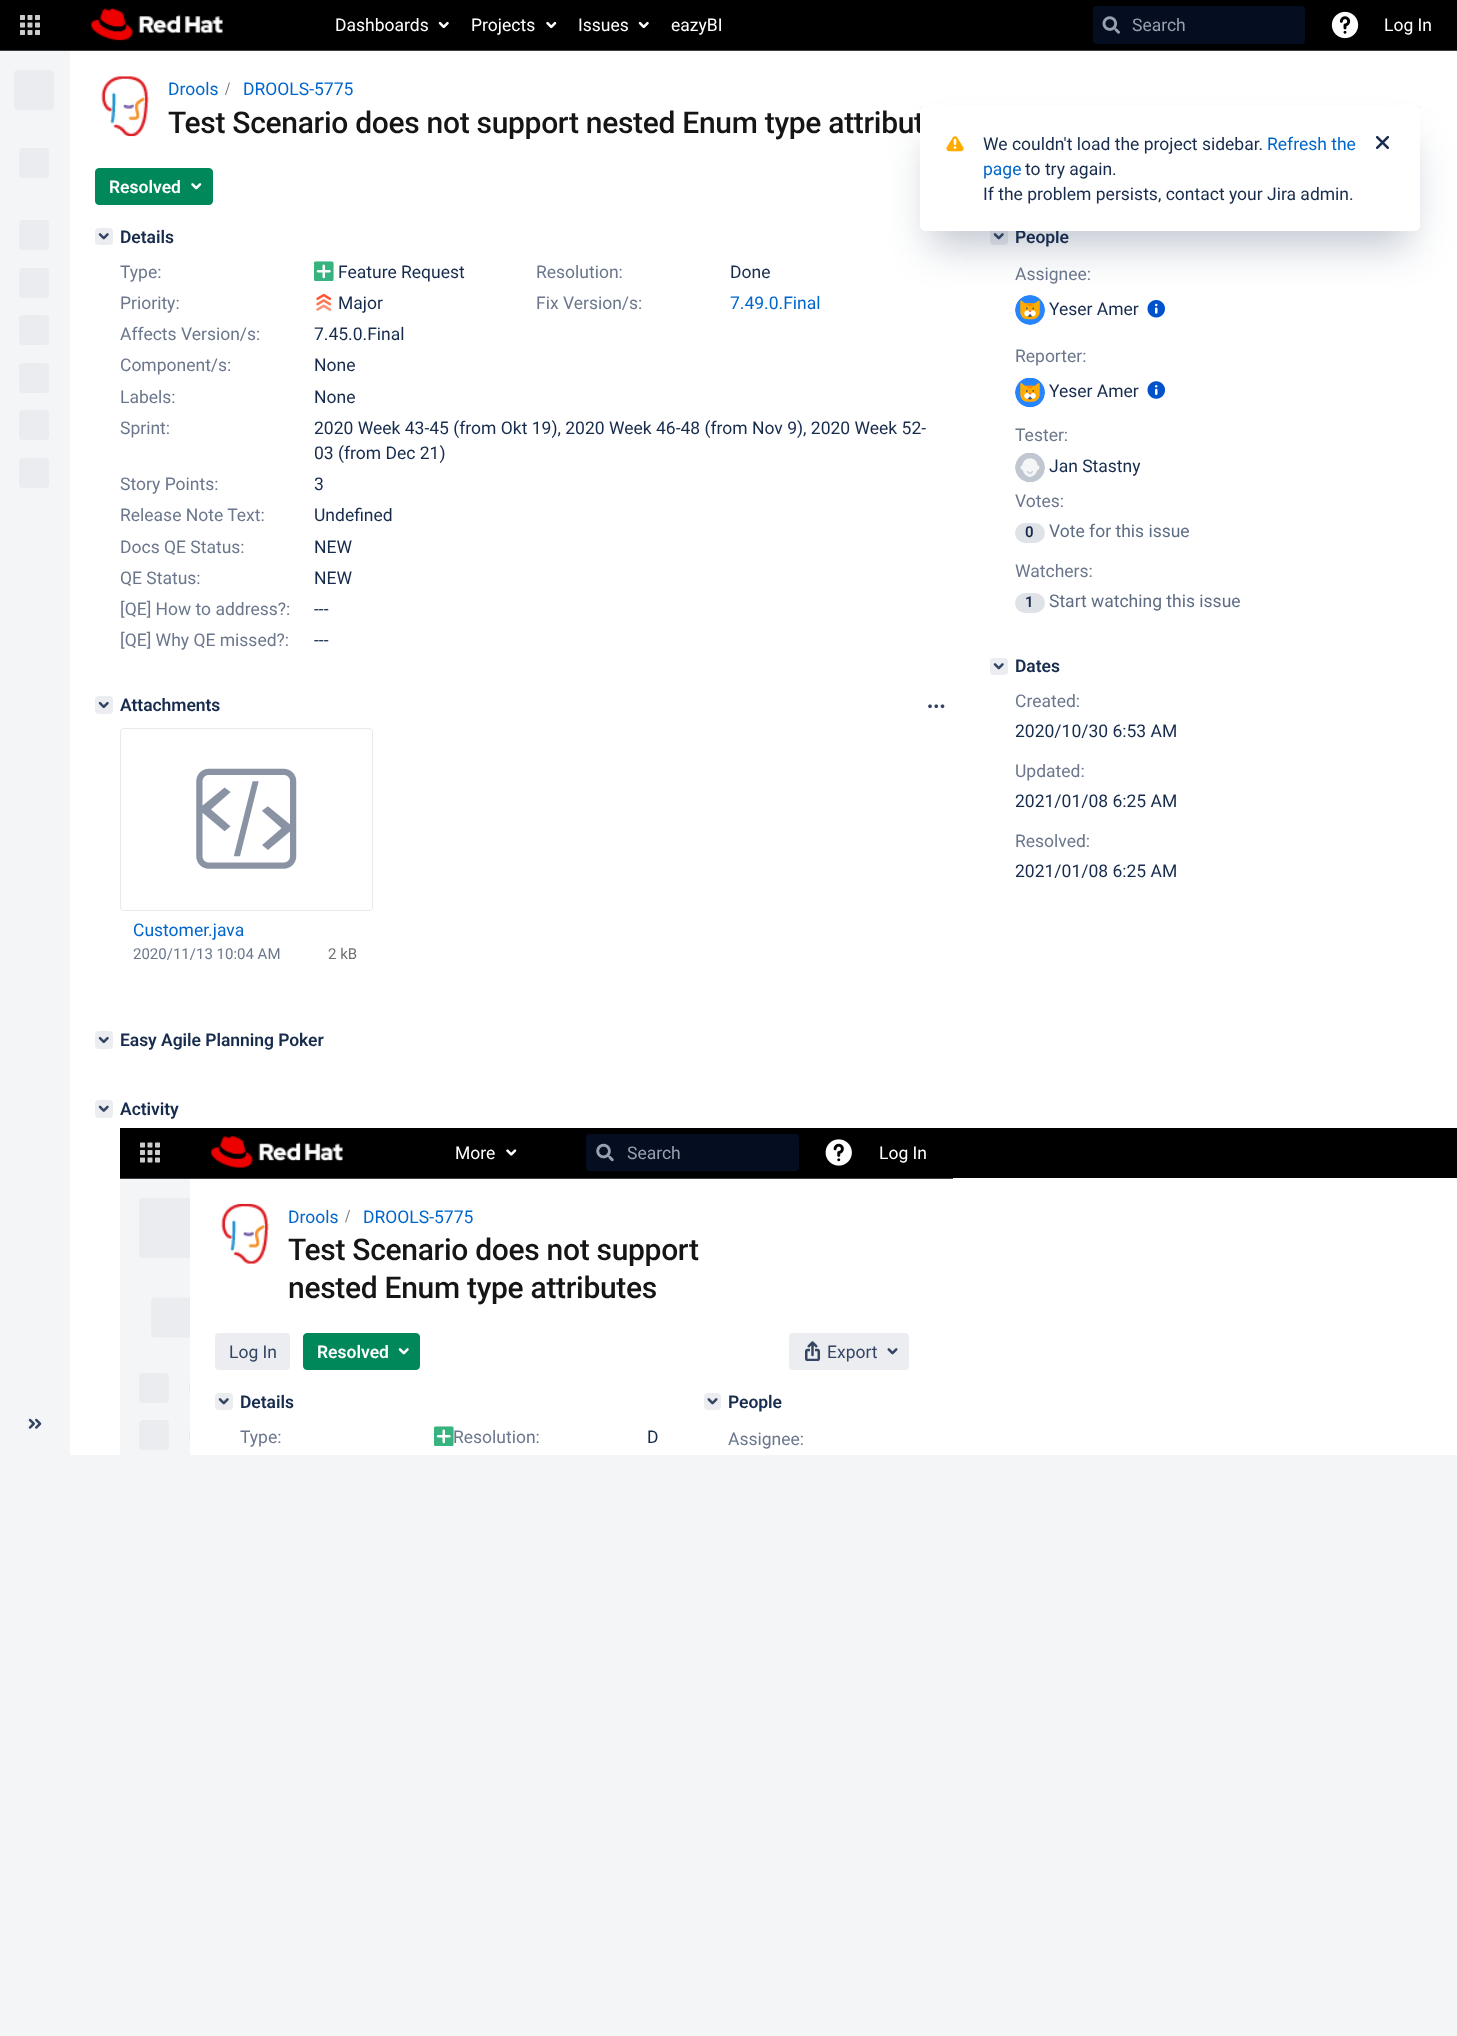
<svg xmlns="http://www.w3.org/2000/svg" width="1457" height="2036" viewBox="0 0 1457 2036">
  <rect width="100%" height="100%" fill="#f4f5f7"/>
  <path d="M0 0h1457v50H0z" fill="#000"/>
  <path d="M0 50h1457v1H0z" fill="#3c3f42"/>
  <image x="20" y="15" width="20" height="20" href="img/1.png"/>
  <image x="91" y="8" width="132" height="33" href="img/2.png"/>
  <image x="438" y="21" width="11" height="8" href="img/3.png"/>
  <image x="546" y="21" width="11" height="8" href="img/4.png"/>
  <image x="638" y="21" width="11" height="8" href="img/3.png"/>
  <rect x="1093" y="6" width="212" height="38" rx="4" fill="#040e20"/>
  <image x="1102" y="16" width="18" height="18" href="img/5.png"/>
  <image x="1331" y="11" width="28" height="28" href="img/6.png"/>
  <rect x="14" y="70" width="40" height="40" rx="4" fill="#ebecf0"/>
  <rect x="19" y="148" width="30" height="30" rx="4" fill="#ebecf0"/>
  <rect x="19" y="220" width="30" height="30" rx="4" fill="#ebecf0"/>
  <rect x="19" y="268" width="30" height="30" rx="4" fill="#ebecf0"/>
  <rect x="19" y="315" width="30" height="30" rx="4" fill="#ebecf0"/>
  <rect x="19" y="363" width="30" height="30" rx="4" fill="#ebecf0"/>
  <rect x="19" y="410" width="30" height="30" rx="4" fill="#ebecf0"/>
  <rect x="19" y="458" width="30" height="30" rx="4" fill="#ebecf0"/>
  <image x="28" y="1418" width="14" height="11" href="img/7.png"/>
  <path d="M70 51h1387v1404H70z" fill="#fff"/>
  <image x="101" y="76" width="48" height="61" href="img/8.png"/>
  <path d="M226 95L230 82.5H229L225 95Z" fill="#707070"/>
  <rect x="95.5" y="168.5" width="117" height="36" rx="3.5" fill="#00875a" stroke="#00875a"/>
  <image x="191" y="183" width="11" height="7" href="img/9.png"/>
  <rect x="95" y="228" width="18" height="17" rx="4" fill="#ebedf0"/>
  <image x="98" y="233" width="11" height="7" href="img/10.png"/>
  <image x="314" y="261" width="20" height="20" href="img/11.png"/>
  <image x="316" y="293" width="16" height="18" href="img/12.png"/>
  <rect x="95" y="696" width="18" height="18" rx="4" fill="#ebedf0"/>
  <image x="98" y="701" width="11" height="8" href="img/13.png"/>
  <image x="928" y="704" width="17" height="5" href="img/14.png"/>
  <rect x="120.5" y="728.5" width="252" height="182" rx="3.5" fill="none" stroke="#e9e9e9"/>
  <image x="196" y="768" width="101" height="101" href="img/15.png"/>
  <rect x="95" y="1031" width="18" height="18" rx="4" fill="#ebedf0"/>
  <image x="98" y="1036" width="11" height="8" href="img/13.png"/>
  <rect x="95" y="1100" width="18" height="18" rx="4" fill="#ebedf0"/>
  <image x="98" y="1105" width="11" height="7" href="img/16.png"/>
  <path d="M120 1128h1337v50H120z" fill="#000"/>
  <path d="M120 1178h833v1H120z" fill="#3c3f42"/>
  <image x="140" y="1142" width="20" height="21" href="img/17.png"/>
  <image x="211" y="1136" width="132" height="32" href="img/18.png"/>
  <image x="506" y="1149" width="11" height="7" href="img/19.png"/>
  <rect x="586" y="1134" width="213" height="37" rx="4" fill="#040e20"/>
  <image x="596" y="1143" width="18" height="19" href="img/20.png"/>
  <image x="825" y="1139" width="27" height="27" href="img/21.png"/>
  <path d="M120 1179h70v276H120z" fill="#f4f5f7"/>
  <image x="139" y="1198" width="51" height="252" href="img/22.png"/>
  <image x="221" y="1203" width="48" height="61" href="img/23.png"/>
  <path d="M346 1222.5L350 1210H349L345 1222.5Z" fill="#707070"/>
  <rect x="215" y="1333" width="75" height="37" rx="4" fill="#ebedf0"/>
  <rect x="303.5" y="1333.5" width="116" height="36" rx="3.5" fill="#00875a" stroke="#00875a"/>
  <image x="398" y="1348" width="11" height="7" href="img/24.png"/>
  <rect x="789" y="1333" width="120" height="37" rx="4" fill="#ebedf0"/>
  <image x="805" y="1341" width="15" height="20" href="img/25.png"/>
  <image x="887" y="1348" width="11" height="7" href="img/26.png"/>
  <rect x="215" y="1393" width="18" height="17" rx="4" fill="#ebedf0"/>
  <image x="218" y="1398" width="11" height="7" href="img/10.png"/>
  <image x="434" y="1426" width="20" height="20" href="img/27.png"/>
  <rect x="704" y="1393" width="17" height="17" rx="4" fill="#ebedf0"/>
  <image x="707" y="1398" width="11" height="7" href="img/28.png"/>
  <rect x="990" y="228" width="18" height="17" rx="4" fill="#ebedf0"/>
  <image x="993" y="233" width="11" height="7" href="img/10.png"/>
  <image x="1015" y="295" width="30" height="30" href="img/29.png"/>
  <image x="1147" y="300" width="18" height="18" href="img/30.png"/>
  <image x="1015" y="378" width="30" height="30" href="img/31.png"/>
  <image x="1147" y="381" width="18" height="18" href="img/32.png"/>
  <image x="1015" y="453" width="30" height="30" href="img/33.png"/>
  <rect x="1015" y="523" width="30" height="20" rx="10" fill="#dfe2e6"/>
  <rect x="1015" y="593" width="30" height="20" rx="10" fill="#dfe2e6"/>
  <rect x="990" y="658" width="18" height="17" rx="4" fill="#ebedf0"/>
  <image x="993" y="663" width="11" height="7" href="img/10.png"/>
  <rect x="920" y="106" width="500" height="125" rx="4" fill="#091e4240" filter="blur(0.5px)"/>
  <path d="M930 141h480v105H930z" fill="#091e4240" filter="blur(20px)"/>
  <g font-family="Roboto" font-size="17.5" fill="#fff">
    <text x="335" y="31">Dashboards</text>
    <text x="471" y="31">Projects</text>
    <text x="578" y="31">Issues</text>
    <text x="671" y="31">eazyBI</text>
  </g>
  <text x="1132" y="31" font-family="Roboto" font-size="17.5" fill="#97a0af">Search</text>
  <text x="1384" y="31" font-family="Roboto" font-size="17.5" fill="#fff">Log In</text>
  <g font-family="Roboto" font-size="17.5" fill="#06c">
    <text x="168" y="95">Drools</text>
    <text x="243" y="95">DROOLS-5775</text>
  </g>
  <text x="168" y="133" font-family="Roboto" font-size="30" font-weight="500" letter-spacing="-0.3" fill="#151515">Test Scenario does not support nested Enum type attribut</text>
  <text x="109" y="193" font-family="Roboto" font-size="17.5" font-weight="600" fill="#fff">Resolved</text>
  <text x="120" y="243" font-family="Roboto" font-size="17.5" font-weight="600" letter-spacing="-0.05" fill="#172b4d">Details</text>
  <text x="120" y="278" font-family="Roboto" font-size="17.5" fill="#6b778c">Type:</text>
  <text x="338" y="278" font-family="Roboto" font-size="17.5" fill="#172b4d">Feature Request</text>
  <text x="536" y="278" font-family="Roboto" font-size="17.5" fill="#6b778c">Resolution:</text>
  <text x="730" y="278" font-family="Roboto" font-size="17.5" fill="#172b4d">Done</text>
  <text x="120" y="309" font-family="Roboto" font-size="17.5" fill="#6b778c">Priority:</text>
  <text x="338" y="309" font-family="Roboto" font-size="17.5" fill="#172b4d">Major</text>
  <text x="536" y="309" font-family="Roboto" font-size="17.5" fill="#6b778c">Fix Version/s:</text>
  <text x="730" y="309" font-family="Roboto" font-size="17.5" fill="#06c">7.49.0.Final</text>
  <text x="120" y="340" font-family="Roboto" font-size="17.5" fill="#6b778c">Affects Version/s:</text>
  <text x="314" y="340" font-family="Roboto" font-size="17.5" fill="#172b4d">7.45.0.Final</text>
  <text x="120" y="371" font-family="Roboto" font-size="17.5" fill="#6b778c">Component/s:</text>
  <text x="314" y="371" font-family="Roboto" font-size="17.5" fill="#172b4d">None</text>
  <text x="120" y="403" font-family="Roboto" font-size="17.5" fill="#6b778c">Labels:</text>
  <text x="314" y="403" font-family="Roboto" font-size="17.5" fill="#172b4d">None</text>
  <text x="120" y="434" font-family="Roboto" font-size="17.5" fill="#6b778c">Sprint:</text>
  <g font-family="Roboto" font-size="17.5" fill="#172b4d">
    <text x="314" y="434">2020 Week 43-45 (from Okt 19), 2020 Week 46-48 (from Nov 9), 2020 Week 52-</text>
    <text x="314" y="459">03 (from Dec 21)</text>
  </g>
  <text x="120" y="490" font-family="Roboto" font-size="17.5" fill="#6b778c">Story Points:</text>
  <text x="314" y="490" font-family="Roboto" font-size="17.5" fill="#172b4d">3</text>
  <text x="120" y="521" font-family="Roboto" font-size="17.5" fill="#6b778c">Release Note Text:</text>
  <text x="314" y="521" font-family="Roboto" font-size="17.5" fill="#172b4d">Undefined</text>
  <text x="120" y="553" font-family="Roboto" font-size="17.5" fill="#6b778c">Docs QE Status:</text>
  <text x="314" y="553" font-family="Roboto" font-size="17.5" fill="#172b4d">NEW</text>
  <text x="120" y="584" font-family="Roboto" font-size="17.5" fill="#6b778c">QE Status:</text>
  <text x="314" y="584" font-family="Roboto" font-size="17.5" fill="#172b4d">NEW</text>
  <text x="120" y="615" font-family="Roboto" font-size="17.5" fill="#6b778c">[QE] How to address?:</text>
  <text x="314" y="615" font-family="Roboto" font-size="17.5" fill="#172b4d">---</text>
  <text x="120" y="646" font-family="Roboto" font-size="17.5" fill="#6b778c">[QE] Why QE missed?:</text>
  <text x="314" y="646" font-family="Roboto" font-size="17.5" fill="#172b4d">---</text>
  <text x="120" y="711" font-family="Roboto" font-size="17.5" font-weight="600" letter-spacing="-0.05" fill="#172b4d">Attachments</text>
  <text x="133" y="936" font-family="Roboto" font-size="17.5" fill="#06c">Customer.java</text>
  <text x="133" y="959" font-family="Roboto" font-size="15" fill="#6b778c">2020/11/13 10:04 AM</text>
  <text x="328" y="959" font-family="Roboto" font-size="15" fill="#707070">2 kB</text>
  <g font-family="Roboto" font-size="17.5" font-weight="600" letter-spacing="-0.05" fill="#172b4d">
    <text x="120" y="1046">Easy Agile Planning Poker</text>
    <text x="120" y="1115">Activity</text>
  </g>
  <text x="455" y="1159" font-family="Roboto" font-size="17.5" fill="#fff">More</text>
  <text x="627" y="1159" font-family="Roboto" font-size="17.5" fill="#97a0af">Search</text>
  <text x="879" y="1159" font-family="Roboto" font-size="17.5" fill="#fff">Log In</text>
  <g font-family="Roboto" font-size="17.5" fill="#06c">
    <text x="288" y="1223">Drools</text>
    <text x="363" y="1223">DROOLS-5775</text>
  </g>
  <g font-family="Roboto" font-size="30" font-weight="500" letter-spacing="-0.3" fill="#151515">
    <text x="288" y="1260">Test Scenario does not support</text>
    <text x="288" y="1298">nested Enum type attributes</text>
  </g>
  <text x="229" y="1358" font-family="Roboto" font-size="17.5" fill="#344563">Log In</text>
  <text x="317" y="1358" font-family="Roboto" font-size="17.5" font-weight="600" fill="#fff">Resolved</text>
  <text x="827" y="1358" font-family="Roboto" font-size="17.5" fill="#344563">Export</text>
  <text x="240" y="1408" font-family="Roboto" font-size="17.5" font-weight="600" letter-spacing="-0.05" fill="#172b4d">Details</text>
  <g font-family="Roboto" font-size="17.5" fill="#6b778c">
    <text x="240" y="1443">Type:</text>
    <text x="453" y="1443">Resolution:</text>
  </g>
  <text x="647" y="1443" font-family="Roboto" font-size="17.5" fill="#172b4d">D</text>
  <text x="728" y="1408" font-family="Roboto" font-size="17.5" font-weight="600" letter-spacing="-0.05" fill="#172b4d">People</text>
  <text x="728" y="1445" font-family="Roboto" font-size="17.5" fill="#6b778c">Assignee:</text>
  <text x="1015" y="243" font-family="Roboto" font-size="17.5" font-weight="600" letter-spacing="-0.05" fill="#172b4d">People</text>
  <text x="1015" y="280" font-family="Roboto" font-size="17.5" fill="#6b778c">Assignee:</text>
  <text x="1049" y="315" font-family="Roboto" font-size="17.5" fill="#172b4d">Yeser Amer</text>
  <text x="1015" y="362" font-family="Roboto" font-size="17.5" fill="#6b778c">Reporter:</text>
  <text x="1049" y="397" font-family="Roboto" font-size="17.5" fill="#172b4d">Yeser Amer</text>
  <text x="1015" y="441" font-family="Roboto" font-size="17.5" fill="#6b778c">Tester:</text>
  <text x="1049" y="472" font-family="Roboto" font-size="17.5" fill="#172b4d">Jan Stastny</text>
  <text x="1015" y="507" font-family="Roboto" font-size="17.5" fill="#6b778c">Votes:</text>
  <text x="1025" y="537" font-family="Roboto" font-size="15" font-weight="600" fill="#172b4d">0</text>
  <text x="1049" y="537" font-family="Roboto" font-size="17.5" fill="#5e6c84">Vote for this issue</text>
  <text x="1015" y="577" font-family="Roboto" font-size="17.5" fill="#6b778c">Watchers:</text>
  <text x="1025" y="607" font-family="Roboto" font-size="15" font-weight="600" fill="#172b4d">1</text>
  <text x="1049" y="607" font-family="Roboto" font-size="17.5" fill="#5e6c84">Start watching this issue</text>
  <text x="1015" y="672" font-family="Roboto" font-size="17.5" font-weight="600" letter-spacing="-0.05" fill="#172b4d">Dates</text>
  <text x="1015" y="707" font-family="Roboto" font-size="17.5" fill="#6b778c">Created:</text>
  <text x="1015" y="737" font-family="Roboto" font-size="17.5" fill="#172b4d">2020/10/30 6:53 AM</text>
  <text x="1015" y="777" font-family="Roboto" font-size="17.5" fill="#6b778c">Updated:</text>
  <text x="1015" y="807" font-family="Roboto" font-size="17.5" fill="#172b4d">2021/01/08 6:25 AM</text>
  <text x="1015" y="847" font-family="Roboto" font-size="17.5" fill="#6b778c">Resolved:</text>
  <text x="1015" y="877" font-family="Roboto" font-size="17.5" fill="#172b4d">2021/01/08 6:25 AM</text>
  <rect x="920" y="106" width="500" height="125" rx="4" fill="#fff"/>
  <image x="946" y="136" width="18" height="16" href="img/34.png"/>
  <text x="983" y="150" font-family="Roboto" font-size="17.5" fill="#172b4d">We couldn't load the project sidebar.</text>
  <text x="1267" y="150" font-family="Roboto" font-size="17.5" fill="#06c">Refresh the</text>
  <image x="1376" y="136" width="13" height="13" href="img/35.png"/>
  <text x="983" y="175" font-family="Roboto" font-size="17.5" fill="#06c">page</text>
  <g font-family="Roboto" font-size="17.5" fill="#172b4d">
    <text x="1025" y="175">to try again.</text>
    <text x="983" y="200">If the problem persists, contact your Jira admin.</text>
  </g>
</svg>
